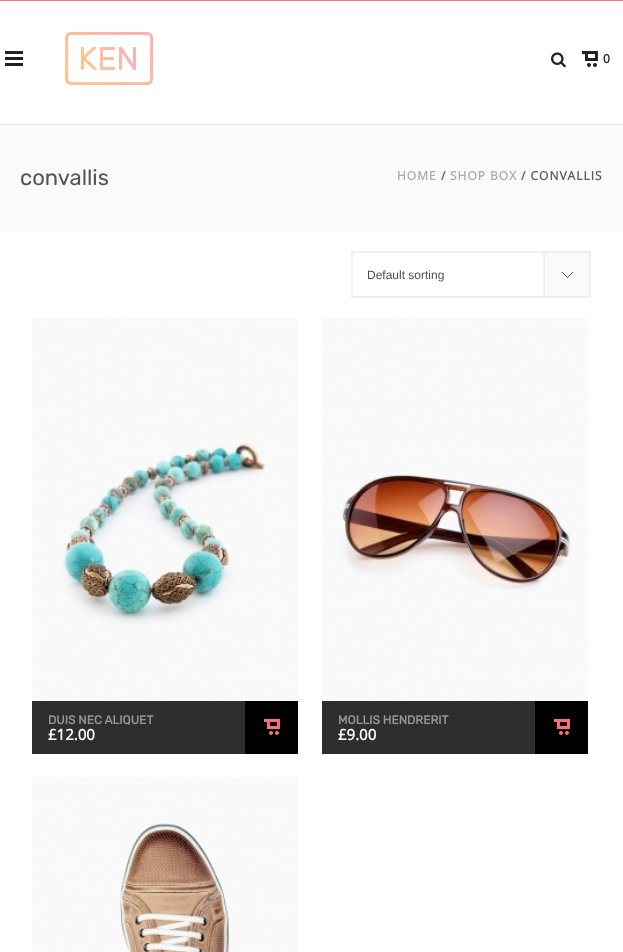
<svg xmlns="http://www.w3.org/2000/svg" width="623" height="952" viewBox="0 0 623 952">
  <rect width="100%" height="100%" fill="#fff"/>
  <path d="M0 0h623v1H0z" fill="#f97178"/>
  <path d="M0 124h623v1H0z" fill="#e6e6e6"/>
  <path d="M5 51h18v3H5z" fill="#222"/>
  <path d="M5 57h18v3H5z" fill="#222"/>
  <path d="M5 63h18v3H5z" fill="#222"/>
  <image x="65" y="32" width="88" height="53" href="img/1.png"/>
  <image x="551" y="52" width="15" height="16" href="img/2.png"/>
  <image x="581" y="51" width="17" height="16" href="img/3.png"/>
  <path d="M0 125h623v106H0z" fill="#fafafa"/>
  <image x="543" y="253" width="46" height="43" href="img/4.png"/>
  <path d="M352 252h238v45H352z" fill="none" stroke="#eee" stroke-width="2"/>
  <image x="32" y="318" width="266" height="383" href="img/5.png"/>
  <path d="M32 701h213v53H32z" fill="#2e2e2e"/>
  <path d="M245 701h53v53H245z" fill="#000"/>
  <image x="263" y="719" width="17" height="16" href="img/6.png"/>
  <image x="322" y="318" width="266" height="383" href="img/7.png"/>
  <path d="M322 701h213v53H322z" fill="#2e2e2e"/>
  <path d="M535 701h53v53H535z" fill="#000"/>
  <image x="553" y="719" width="17" height="16" href="img/6.png"/>
  <image x="32" y="777" width="266" height="175" href="img/8.png"/>
  <text x="603" y="63" font-family="Open Sans" font-size="12" font-weight="bold" fill="#222">0</text>
  <text x="20" y="185" font-family="Rubik" font-size="22" font-weight="300" fill="#545454">convallis</text>
  <text x="397" y="180" font-family="Open Sans" font-size="12" font-weight="bold" letter-spacing="1" fill="#acacac">HOME</text>
  <text x="441" y="180" font-family="Open Sans" font-size="12" font-weight="bold" letter-spacing="1" fill="#5e5e5e">/</text>
  <text x="450" y="180" font-family="Open Sans" font-size="12" font-weight="bold" letter-spacing="1" fill="#acacac">SHOP BOX</text>
  <text x="521" y="180" font-family="Open Sans" font-size="12" font-weight="bold" letter-spacing="1" fill="#5e5e5e">/ CONVALLIS</text>
  <text x="367" y="279" font-family="Liberation Sans" font-size="12" fill="#4e4e4e">Default sorting</text>
  <text x="48" y="724" font-family="Rubik" font-size="12" font-weight="bold" fill="#979797">DUIS NEC ALIQUET</text>
  <text x="48" y="740" font-family="Open Sans" font-size="15" font-weight="bold" fill="#fff">£12.00</text>
  <text x="338" y="724" font-family="Rubik" font-size="12" font-weight="bold" fill="#979797">MOLLIS HENDRERIT</text>
  <text x="338" y="740" font-family="Open Sans" font-size="15" font-weight="bold" fill="#fff">£9.00</text>
</svg>
